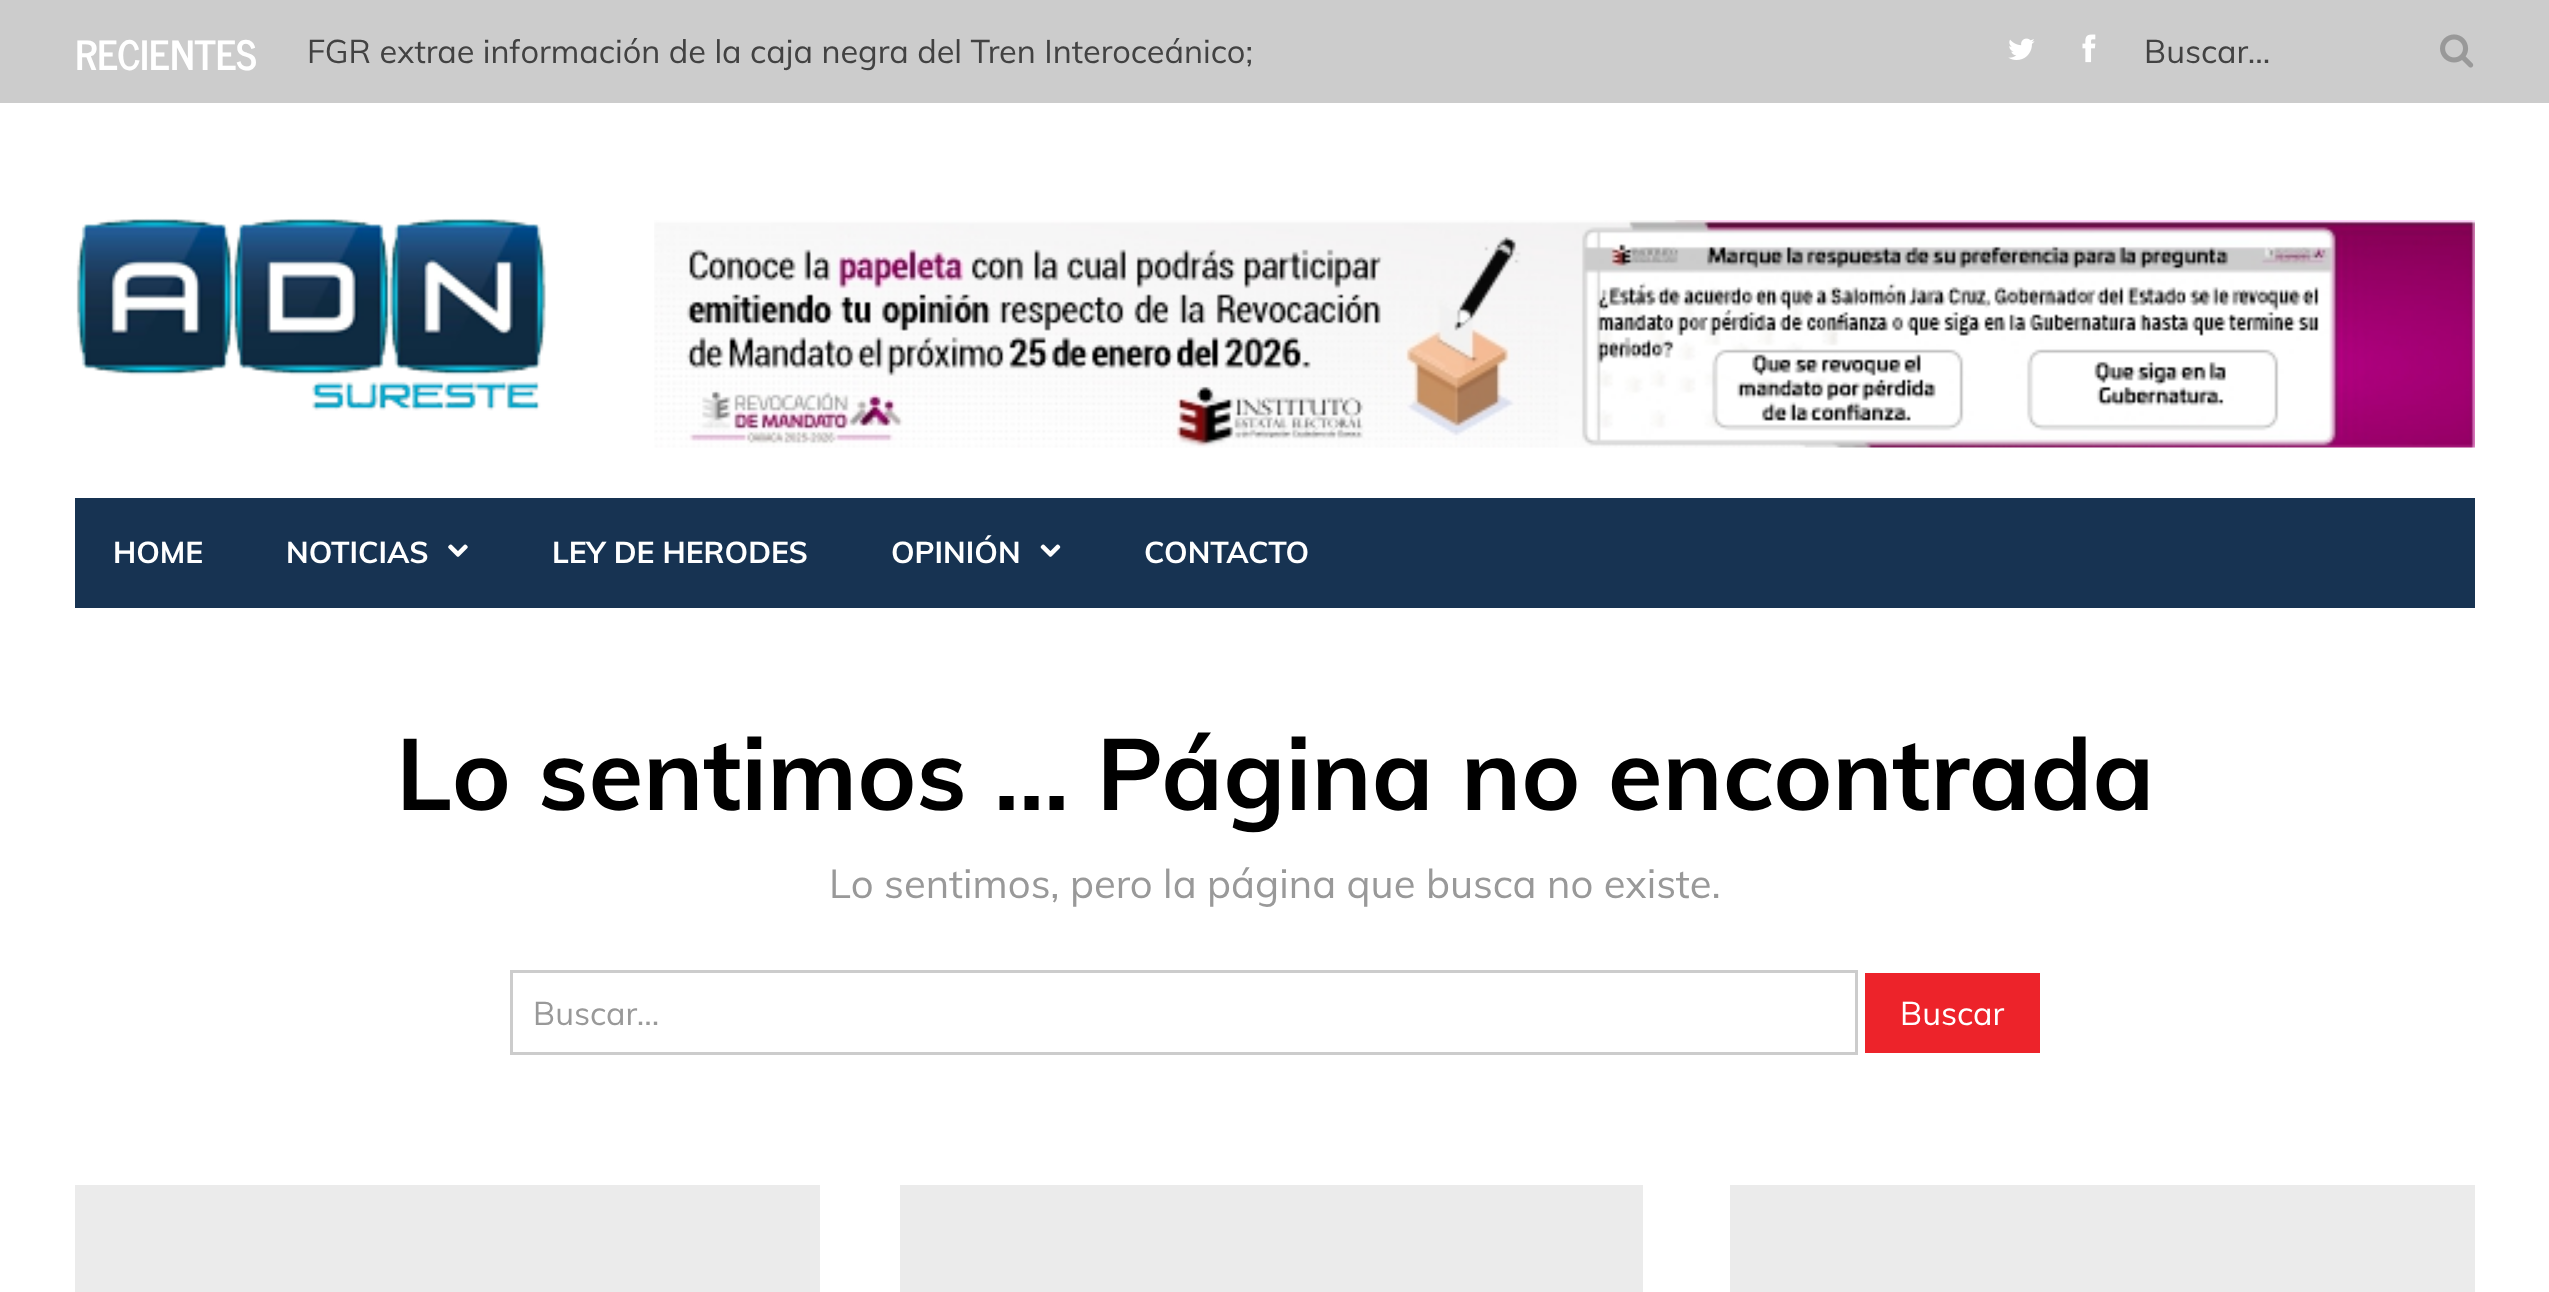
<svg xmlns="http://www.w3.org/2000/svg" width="2549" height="1292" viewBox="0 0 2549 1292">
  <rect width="100%" height="100%" fill="#fff"/>
  <path d="M0 0h2549v103H0z" fill="#ccc"/>
  <image x="2008" y="38" width="27" height="22" href="img/1.png"/>
  <image x="2082" y="34" width="14" height="29" href="img/2.png"/>
  <image x="2440" y="34" width="34" height="34" href="img/3.png"/>
  <image x="76" y="218" width="470" height="193" href="img/4.png"/>
  <image x="654" y="220" width="1821" height="228" href="img/5.png"/>
  <path d="M75 498h2400v110H75z" fill="#173352"/>
  <image x="448" y="544" width="20" height="13" href="img/6.png"/>
  <image x="1040" y="544" width="21" height="13" href="img/7.png"/>
  <path d="M511.5 971.5h1345v82H511.5z" fill="none" stroke="#ccc" stroke-width="3"/>
  <path d="M1865 973h175v80H1865z" fill="#ed232a"/>
  <path d="M75 1185h745v107H75z" fill="#ebebeb"/>
  <path d="M900 1185h743v107H900z" fill="#ebebeb"/>
  <path d="M1730 1185h745v107H1730z" fill="#ebebeb"/>
  <text x="75" y="70" font-family="News Cycle" font-size="40" font-weight="bold" fill="#fff">RECIENTES</text>
  <g font-family="Muli" font-size="32.5" fill="#424242">
    <text x="307" y="63">FGR extrae información de la caja negra del Tren Interoceánico;</text>
    <text x="2144" y="63">Buscar...</text>
  </g>
  <g font-family="Muli" font-size="30" font-weight="bold" fill="#fff">
    <text x="113" y="563">HOME</text>
    <text x="286" y="563">NOTICIAS</text>
    <text x="552" y="563">LEY DE HERODES</text>
    <text x="891" y="563">OPINIÓN</text>
    <text x="1144" y="563">CONTACTO</text>
  </g>
  <text x="396" y="810" font-family="Muli" font-size="100" font-weight="bold" fill="#000">Lo sentimos ... Página no encontrada</text>
  <text x="829" y="898" font-family="Muli" font-size="40" fill="#999">Lo sentimos, pero la página que busca no existe.</text>
  <text x="533" y="1025" font-family="Muli" font-size="32.5" fill="#999">Buscar...</text>
  <text x="1900" y="1025" font-family="Muli" font-size="32.5" fill="#fff">Buscar</text>
</svg>
